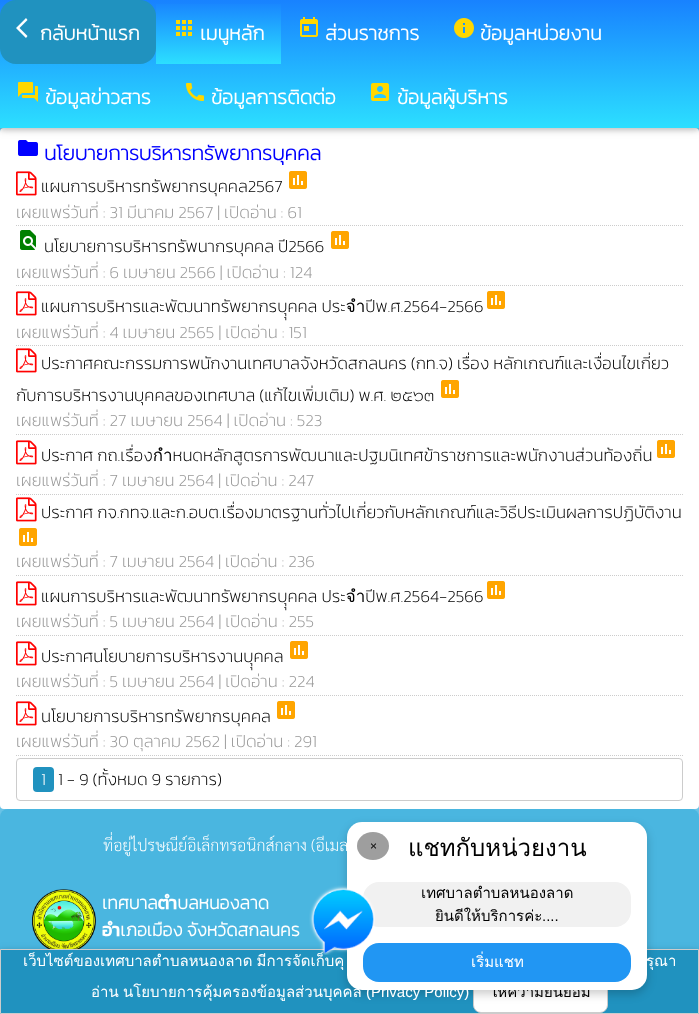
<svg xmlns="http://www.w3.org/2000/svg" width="699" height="1014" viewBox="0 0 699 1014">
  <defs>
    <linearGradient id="g1" gradientUnits="userSpaceOnUse" x1="350" y1="0" x2="350" y2="128"><stop offset="0" stop-color="#1882ff"/><stop offset="1" stop-color="#2cdfff"/></linearGradient>
    <linearGradient id="g2" gradientUnits="userSpaceOnUse" x1="219" y1="0" x2="219" y2="64"><stop offset="0" stop-color="#1882ff"/><stop offset="1" stop-color="#2cdfff"/></linearGradient>
    <clipPath id="clip1"><path d="M102 889h565v54H102z"/></clipPath>
  </defs>
  <rect width="100%" height="100%" fill="#69c2e6"/>
  <rect y="128" width="699" height="681" rx="4" fill="#fff"/>
  <image x="18" y="140" width="20" height="16" href="img/7.png"/>
  <path d="M0 2h699v128H0z" fill="#0000001f" filter="blur(5px)"/>
  <path d="M0 2h699v128H0z" fill="#00000029" filter="blur(2.5px)"/>
  <path d="M0 0h699v128H0z" fill="url(#g1)"/>
  <rect width="156" height="64" rx="16" fill="#2092bf"/>
  <path d="M27.5 20L19.5 28L27.5 36L26 38L16 28L26 18Z" fill="#fff"/>
  <path d="M156 4h125v60H156z" fill="url(#g2)"/>
  <image x="176" y="20" width="16" height="16" href="img/1.png"/>
  <image x="300" y="17" width="18" height="20" href="img/2.png"/>
  <image x="454" y="18" width="20" height="20" href="img/3.png"/>
  <image x="18" y="82" width="20" height="20" href="img/4.png"/>
  <image x="186" y="83" width="18" height="18" href="img/5.png"/>
  <image x="371" y="83" width="18" height="18" href="img/6.png"/>
  <image x="16" y="171" width="21" height="25" href="img/8.png"/>
  <image x="289" y="171" width="18" height="18" href="img/9.png"/>
  <path d="M16 225.5H683" fill="none" stroke="#ccc" stroke-dasharray="1 1"/>
  <image x="20" y="230" width="16" height="20" href="img/10.png"/>
  <image x="331" y="231" width="18" height="18" href="img/9.png"/>
  <path d="M16 285.5H683" fill="none" stroke="#ccc" stroke-dasharray="1 1"/>
  <image x="16" y="291" width="21" height="25" href="img/8.png"/>
  <image x="487" y="291" width="18" height="18" href="img/9.png"/>
  <path d="M16 345.5H683" fill="none" stroke="#ccc" stroke-dasharray="1 1"/>
  <image x="16" y="348" width="21" height="25" href="img/8.png"/>
  <image x="441" y="380" width="18" height="18" href="img/9.png"/>
  <path d="M16 434.5H683" fill="none" stroke="#ccc" stroke-dasharray="1 1"/>
  <image x="16" y="440" width="21" height="25" href="img/8.png"/>
  <image x="657" y="440" width="18" height="18" href="img/9.png"/>
  <path d="M16 494.5H683" fill="none" stroke="#ccc" stroke-dasharray="1 1"/>
  <image x="16" y="497" width="21" height="25" href="img/8.png"/>
  <image x="19" y="528" width="18" height="18" href="img/9.png"/>
  <path d="M16 575.5H683" fill="none" stroke="#ccc" stroke-dasharray="1 1"/>
  <image x="16" y="581" width="21" height="25" href="img/8.png"/>
  <image x="487" y="581" width="18" height="18" href="img/9.png"/>
  <path d="M16 635.5H683" fill="none" stroke="#ccc" stroke-dasharray="1 1"/>
  <image x="16" y="641" width="21" height="25" href="img/8.png"/>
  <image x="290" y="641" width="18" height="18" href="img/9.png"/>
  <path d="M16 695.5H683" fill="none" stroke="#ccc" stroke-dasharray="1 1"/>
  <image x="16" y="701" width="21" height="25" href="img/8.png"/>
  <image x="277" y="701" width="18" height="18" href="img/9.png"/>
  <path d="M16 755.5H683" fill="none" stroke="#ccc" stroke-dasharray="1 1"/>
  <rect x="16.5" y="758.5" width="666" height="42" rx="3.5" fill="none" stroke="#ccc"/>
  <rect x="33" y="767" width="21" height="25" rx="4" fill="#2092bf"/>
  <rect y="809" width="699" height="184" rx="8" fill="#4ab6e0"/>
  <image x="32" y="889" width="64" height="60" href="img/11.png"/>
  <path d="M0 951h699v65H0z" fill="#0000001f" filter="blur(5px)"/>
  <path d="M0 951h699v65H0z" fill="#00000029" filter="blur(2.5px)"/>
  <path d="M0.5 949.5h698v64H0.5z" fill="#2092bf" stroke="#ccc"/>
  <rect x="473.5" y="972.5" width="134" height="40" rx="7.5" fill="#fff" stroke="#ccc"/>
  <rect x="347" y="826" width="300" height="168" rx="15" fill="#00000033" filter="blur(5px)"/>
  <g font-family="Kanit" font-size="20" font-weight="bold" fill="#fff">
    <text x="40" y="40">กลับหน้าแรก</text>
    <text x="200" y="40">เมนูหลัก</text>
    <text x="325" y="40">ส่วนราชการ</text>
    <text x="480" y="40">ข้อมูลหน่วยงาน</text>
    <text x="45" y="104">ข้อมูลข่าวสาร</text>
    <text x="211" y="104">ข้อมูลการติดต่อ</text>
    <text x="397" y="104">ข้อมูลผู้บริหาร</text>
  </g>
  <text x="44" y="160" font-family="Prompt" font-size="20" font-weight="bold" fill="#00f">นโยบายการบริหารทรัพยากรบุคคล</text>
  <text x="41" y="192" font-family="Kanit" font-size="17" font-weight="200" fill="#000">แผนการบริหารทรัพยากรบุคคล2567</text>
  <text x="16" y="218" font-family="Kanit" font-size="17" font-weight="200" fill="#999">เผยแพร่วันที่ : 31 มีนาคม 2567 | เปิดอ่าน : 61</text>
  <text x="44" y="252" font-family="Kanit" font-size="17" font-weight="200" fill="#000">นโยบายการบริหารทรัพนากรบุคคล ปี2566</text>
  <text x="16" y="278" font-family="Kanit" font-size="17" font-weight="200" fill="#999">เผยแพร่วันที่ : 6 เมษายน 2566 | เปิดอ่าน : 124</text>
  <text x="41" y="312" font-family="Kanit" font-size="17" font-weight="200" fill="#000">แผนการบริหารและพัฒนาทรัพยากรบุุคคล ประจำปีพ.ศ.2564-2566</text>
  <text x="16" y="338" font-family="Kanit" font-size="17" font-weight="200" fill="#999">เผยแพร่วันที่ : 4 เมษายน 2565 | เปิดอ่าน : 151</text>
  <g font-family="Kanit" font-size="17" font-weight="200" fill="#000">
    <text x="41" y="369">ประกาศคณะกรรมการพนักงานเทศบาลจังหวัดสกลนคร (กท.จ) เรื่อง หลักเกณฑ์และเงื่อนไขเกี่ยว</text>
    <text x="16" y="401">กับการบริหารงานบุคคลของเทศบาล (แก้ไขเพิ่มเติม) พ.ศ. ๒๕๖๓</text>
  </g>
  <text x="16" y="426" font-family="Kanit" font-size="17" font-weight="200" fill="#999">เผยแพร่วันที่ : 27 เมษายน 2564 | เปิดอ่าน : 523</text>
  <text x="41" y="461" font-family="Kanit" font-size="17" font-weight="200" fill="#000">ประกาศ กถ.เรื่องกำหนดหลักสูตรการพัฒนาและปฐมนิเทศข้าราชการและพนักงานส่วนท้องถิ่น</text>
  <text x="16" y="486" font-family="Kanit" font-size="17" font-weight="200" fill="#999">เผยแพร่วันที่ : 7 เมษายน 2564 | เปิดอ่าน : 247</text>
  <text x="41" y="518" font-family="Kanit" font-size="17" font-weight="200" fill="#000">ประกาศ กจ.กทจ.และก.อบต.เรื่องมาตรฐานทั่วไปเกี่ยวกับหลักเกณฑ์และวิธีประเมินผลการปฏิบัติงาน</text>
  <text x="16" y="567" font-family="Kanit" font-size="17" font-weight="200" fill="#999">เผยแพร่วันที่ : 7 เมษายน 2564 | เปิดอ่าน : 236</text>
  <text x="41" y="602" font-family="Kanit" font-size="17" font-weight="200" fill="#000">แผนการบริหารและพัฒนาทรัพยากรบุุคคล ประจำปีพ.ศ.2564-2566</text>
  <text x="16" y="627" font-family="Kanit" font-size="17" font-weight="200" fill="#999">เผยแพร่วันที่ : 5 เมษายน 2564 | เปิดอ่าน : 255</text>
  <text x="41" y="662" font-family="Kanit" font-size="17" font-weight="200" fill="#000">ประกาศนโยบายการบริหารงานบุุคคล</text>
  <text x="16" y="687" font-family="Kanit" font-size="17" font-weight="200" fill="#999">เผยแพร่วันที่ : 5 เมษายน 2564 | เปิดอ่าน : 224</text>
  <text x="41" y="722" font-family="Kanit" font-size="17" font-weight="200" fill="#000">นโยบายการบริหารทรัพยากรบุคคล</text>
  <text x="16" y="747" font-family="Kanit" font-size="17" font-weight="200" fill="#999">เผยแพร่วันที่ : 30 ตุลาคม 2562 | เปิดอ่าน : 291</text>
  <text x="41" y="785" font-family="Kanit" font-size="17" font-weight="200" fill="#fff">1</text>
  <text x="58" y="785" font-family="Kanit" font-size="17" font-weight="200" fill="#000">1 - 9 (ทั้งหมด 9 รายการ)</text>
  <text x="103" y="851" font-family="Sarabun" font-size="16" font-weight="200" fill="#fff">ที่อยู่ไปรษณีย์อิเล็กทรอนิกส์กลาง (อีเมล</text>
  <text x="102" y="909" font-family="Kanit" font-size="18" font-weight="bold" fill="#fff">เทศบาลตำบลหนองลาด</text>
  <g clip-path="url(#clip1)">
    <text x="102" y="936" font-family="Kanit" font-size="18" font-weight="bold" fill="#fff">อำเภอเมือง จังหวัดสกลนคร</text>
  </g>
  <g font-family="Loma" font-size="15" fill="#fff">
    <text x="23" y="966" word-spacing="-1">เว็บไซต์ของเทศบาลตำบลหนองลาด มีการจัดเก็บคุ</text>
    <text x="646" y="966" word-spacing="-1">รุณา</text>
    <text x="91" y="997">อ่าน</text>
    <text x="123" y="997">นโยบายการคุ้มครองข้อมูลส่วนบุคคล</text>
  </g>
  <text x="366" y="997" font-family="Liberation Sans" font-size="15" fill="#fff">(Privacy Policy)</text>
  <text x="490" y="997" font-family="Loma" font-size="15" fill="#000">ให้ความยินยอม</text>
  <rect x="347" y="822" width="300" height="168" rx="15" fill="#fff"/>
  <rect x="363" y="943" width="268" height="39" rx="16" fill="#2196f3"/>
  <rect x="363" y="882" width="268" height="45" rx="16" fill="#f1f1f1"/>
  <image x="309" y="885" width="66" height="70" href="img/12.png"/>
  <ellipse cx="373" cy="846" rx="16" ry="14" fill="#9e9e9e"/>
  <text x="370" y="850" font-family="Liberation Sans" font-size="12" fill="#000">×</text>
  <text x="471" y="967" font-family="Loma" font-size="15" fill="#fff">เริ่มแชท</text>
  <text x="542" y="921" font-family="Liberation Sans" font-size="15" fill="#000">....</text>
  <g font-family="Loma" font-size="15" fill="#000">
    <text x="435" y="921">ยินดีให้บริการค่ะ</text>
    <text x="421" y="898">เทศบาลตำบลหนองลาด</text>
  </g>
  <text x="408" y="856" font-family="Loma" font-size="24" fill="#000">แชทกับหน่วยงาน</text>
</svg>
